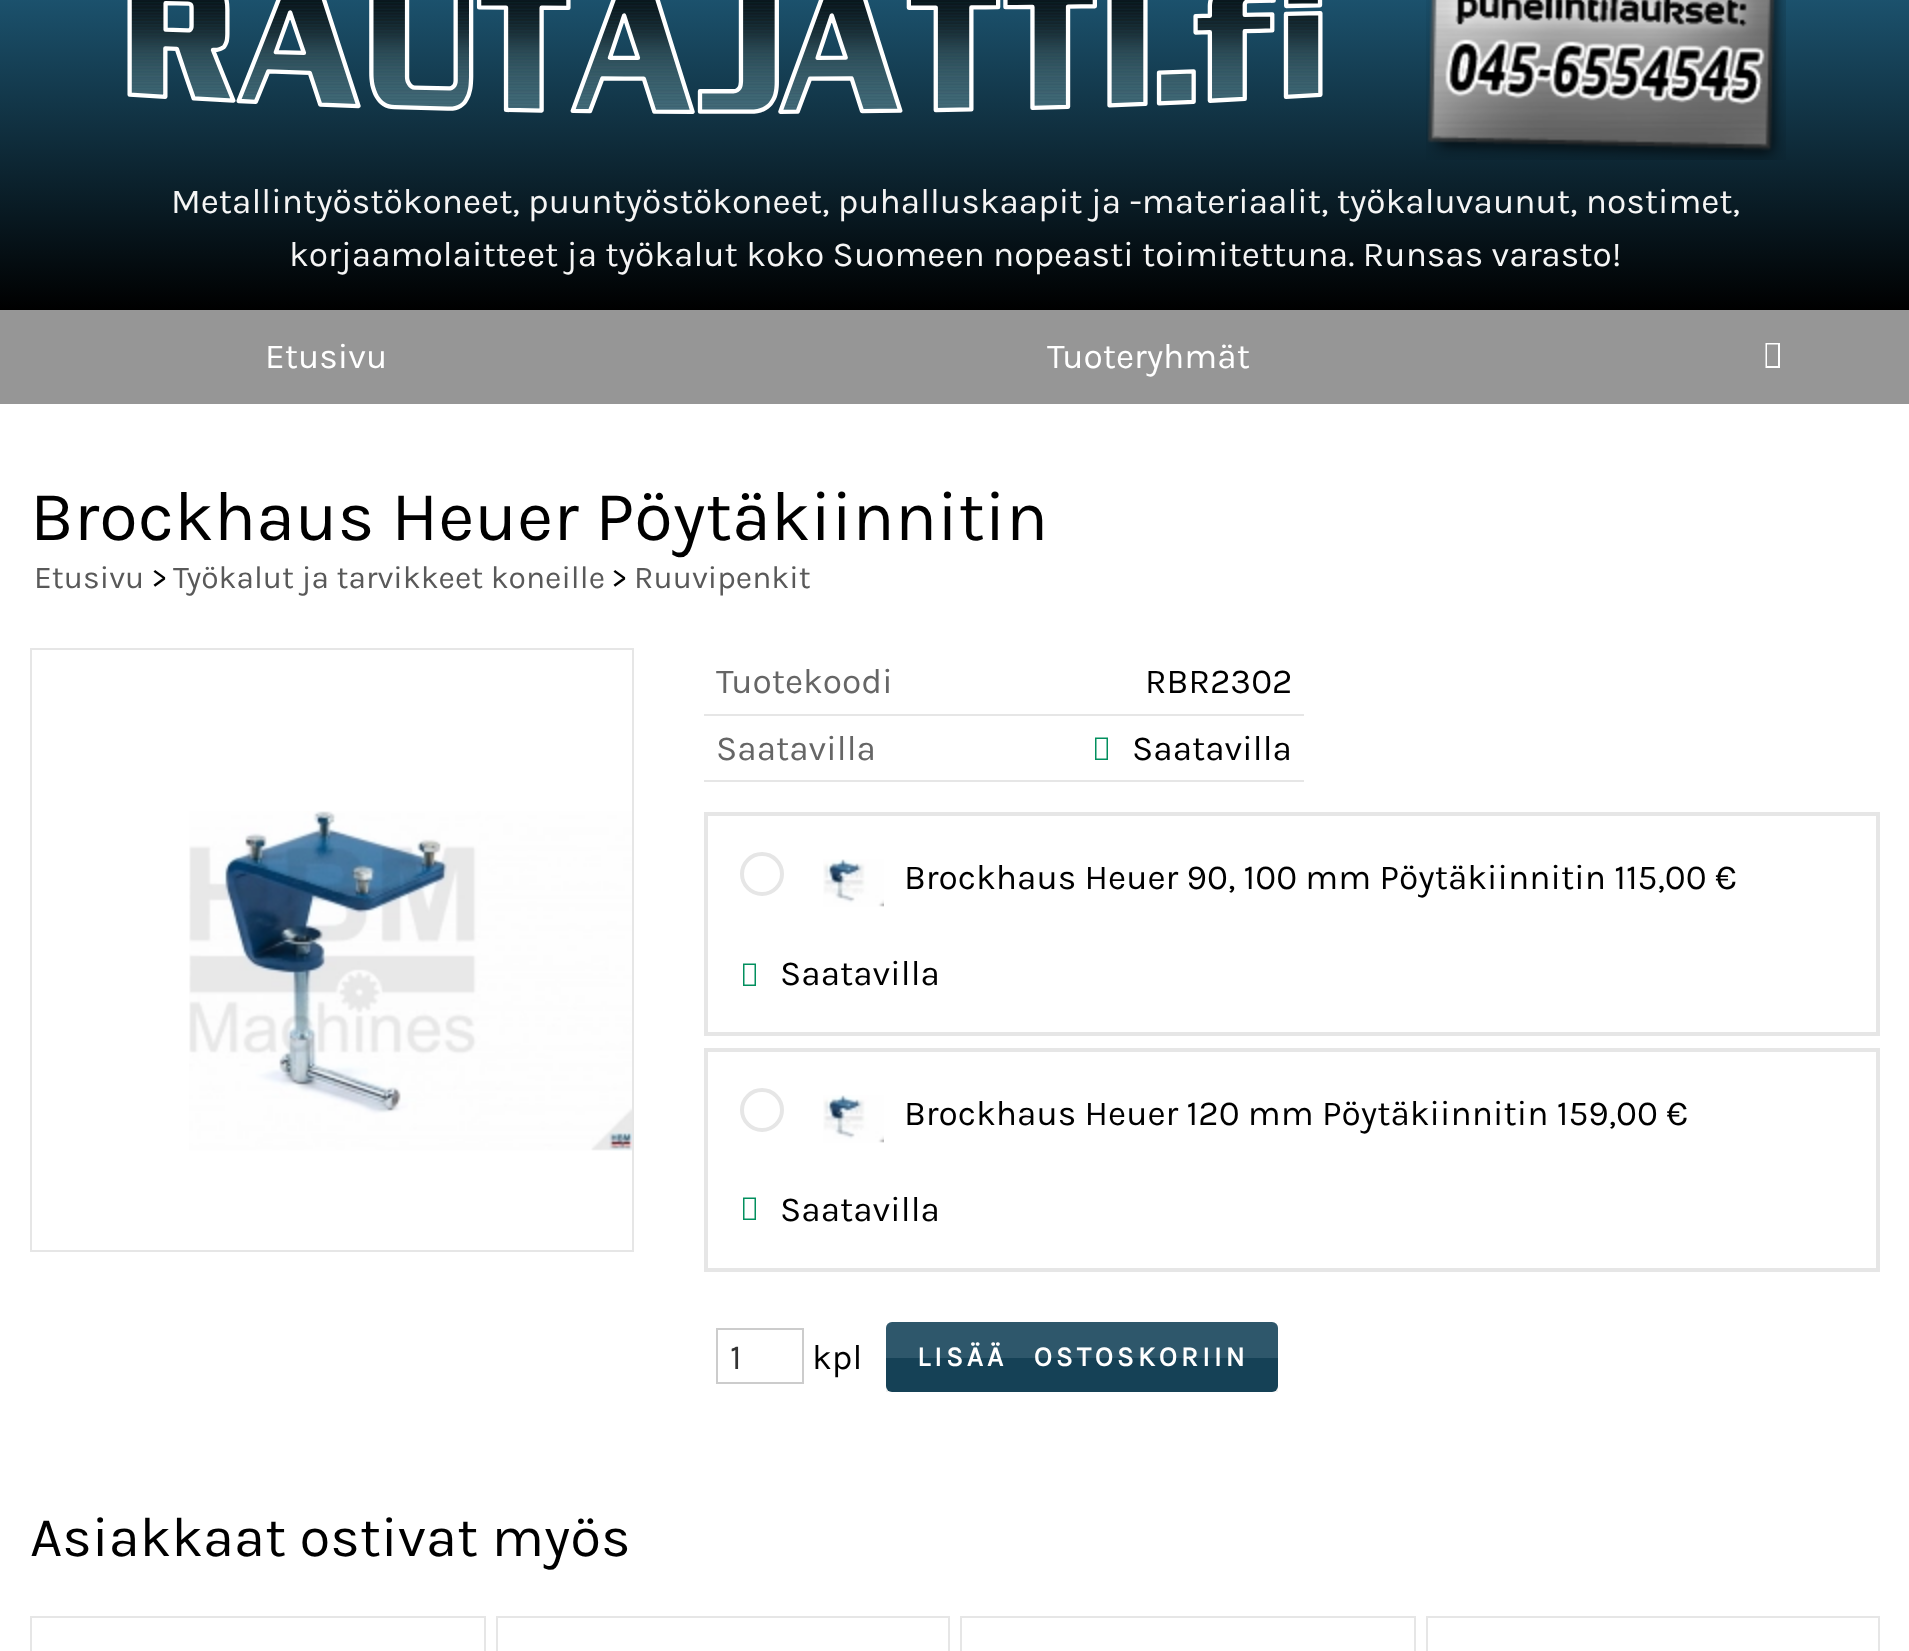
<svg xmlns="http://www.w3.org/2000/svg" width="1909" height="1651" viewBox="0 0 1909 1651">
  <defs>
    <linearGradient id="g1" gradientUnits="userSpaceOnUse" x1="955" y1="-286" x2="955" y2="310"><stop offset="0.2" stop-color="#2a7da7"/><stop offset="1" stop-color="#000"/></linearGradient>
  </defs>
  <rect width="100%" height="100%" fill="#fff"/>
  <path d="M0 0h1909v310H0z" fill="url(#g1)"/>
  <image x="127" y="0" width="1196" height="114" href="img/1.png"/>
  <image x="1426" y="0" width="360" height="160" href="img/2.png"/>
  <path d="M0 310h1909v94H0z" fill="#969696"/>
  <path d="M1765.5 368V343H1780V368ZM1767 366H1778V344.5H1767Z" fill="#fff"/>
  <path d="M31 649h602v602H31z" fill="none" stroke="#e6e6e6" stroke-width="2"/>
  <image x="189" y="811" width="443" height="340" href="img/3.png"/>
  <path d="M704 714h600v2H704z" fill="#e6e6e6"/>
  <path d="M704 780h600v2H704z" fill="#e6e6e6"/>
  <path d="M1095 760V737.5H1108V760ZM1096.5 758.5H1106.5V739H1096.5Z" fill="#028f5e"/>
  <path d="M706 814h1172v220H706z" fill="none" stroke="#e6e6e6" stroke-width="4"/>
  <circle cx="762" cy="874" r="20" fill="none" stroke="#e6e6e6" stroke-width="4"/>
  <image x="823" y="859" width="61" height="48" href="img/4.png"/>
  <path d="M743 986V963.5H756V986ZM744.5 984.5H754.5V965H744.5Z" fill="#028f5e"/>
  <path d="M706 1050h1172v220H706z" fill="none" stroke="#e6e6e6" stroke-width="4"/>
  <circle cx="762" cy="1110" r="20" fill="none" stroke="#e6e6e6" stroke-width="4"/>
  <image x="823" y="1095" width="61" height="48" href="img/4.png"/>
  <path d="M743 1220V1197.5H756V1220ZM744.5 1218.5H754.5V1199H744.5Z" fill="#028f5e"/>
  <path d="M717 1329h86v54H717z" fill="none" stroke="#ccc" stroke-width="2"/>
  <rect x="886" y="1322" width="392" height="70" rx="6" fill="#17455b"/>
  <path d="M886 1358h392v34H886z" fill="#0000000d"/>
  <path d="M892 1322H1272C1275.5 1322 1278 1324.5 1278 1328V1358H886V1328C886 1324.5 888.5 1322 892 1322Z" fill="#ffffff1a"/>
  <path d="M31 1617h454v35H31z" fill="none" stroke="#e6e6e6" stroke-width="2"/>
  <path d="M497 1617h452v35H497z" fill="none" stroke="#e6e6e6" stroke-width="2"/>
  <path d="M961 1617h454v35H961z" fill="none" stroke="#e6e6e6" stroke-width="2"/>
  <path d="M1427 1617h452v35H1427z" fill="none" stroke="#e6e6e6" stroke-width="2"/>
  <g font-family="Karla" font-size="35.2" fill="#f5f5f5">
    <text x="171" y="213">Metallintyöstökoneet, puuntyöstökoneet, puhalluskaapit ja -materiaalit, työkaluvaunut, nostimet,</text>
    <text x="289" y="266">korjaamolaitteet ja työkalut koko Suomeen nopeasti toimitettuna. Runsas varasto!</text>
  </g>
  <g font-family="Karla" font-size="35.2" fill="#fff">
    <text x="265" y="368">Etusivu</text>
    <text x="1047" y="368">Tuoteryhmät</text>
  </g>
  <text x="30" y="540" font-family="Karla" font-size="70.4" fill="#000">Brockhaus Heuer Pöytäkiinnitin</text>
  <text x="34" y="588" font-family="Karla" font-size="31.75" fill="#595959">Etusivu</text>
  <text x="152" y="588" font-family="Karla" font-size="31.75" fill="#000">&gt;</text>
  <text x="173" y="588" font-family="Karla" font-size="31.75" fill="#595959">Työkalut ja tarvikkeet koneille</text>
  <text x="612" y="588" font-family="Karla" font-size="31.75" fill="#000">&gt;</text>
  <text x="634" y="588" font-family="Karla" font-size="31.75" fill="#595959">Ruuvipenkit</text>
  <text x="716" y="693" font-family="Karla" font-size="35.2" fill="#666">Tuotekoodi</text>
  <text x="1145" y="693" font-family="Karla" font-size="35.2" fill="#000">RBR2302</text>
  <text x="716" y="760" font-family="Karla" font-size="35.2" fill="#666">Saatavilla</text>
  <g font-family="Karla" font-size="35.2" fill="#000">
    <text x="1132" y="760">Saatavilla</text>
    <text x="904" y="889">Brockhaus Heuer 90, 100 mm Pöytäkiinnitin 115,00 €</text>
    <text x="780" y="985">Saatavilla</text>
    <text x="904" y="1125">Brockhaus Heuer 120 mm Pöytäkiinnitin 159,00 €</text>
    <text x="780" y="1221">Saatavilla</text>
  </g>
  <text x="730" y="1369" font-family="Karla" font-size="35.2" fill="#333">1</text>
  <text x="812" y="1369" font-family="Karla" font-size="35.2" fill="#000">kpl</text>
  <text x="917" y="1366" word-spacing="16" font-family="Karla" font-size="28" font-weight="bold" letter-spacing="4" fill="#fff">LISÄÄ OSTOSKORIIN</text>
  <text x="30" y="1556" font-family="Karla" font-size="56.25" fill="#000">Asiakkaat ostivat myös</text>
</svg>
